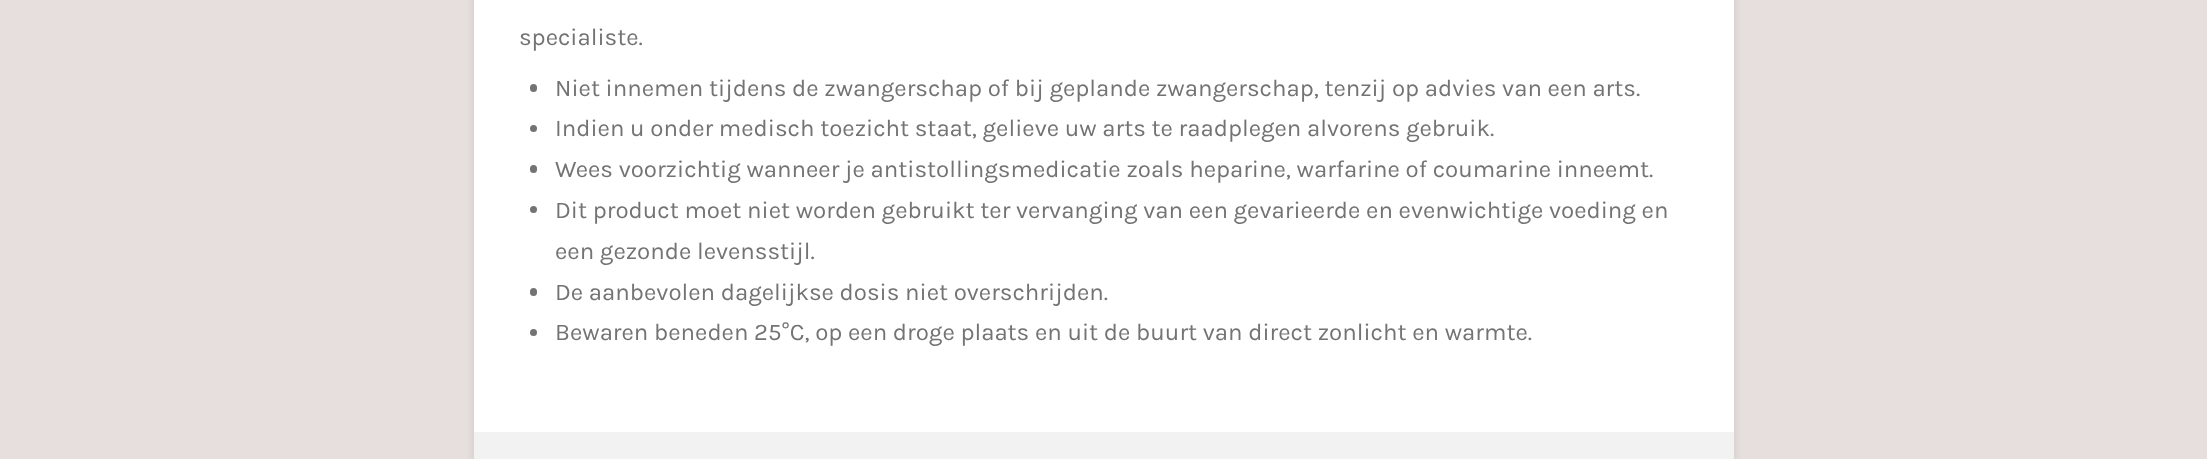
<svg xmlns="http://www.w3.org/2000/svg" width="2207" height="459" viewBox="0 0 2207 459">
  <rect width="100%" height="100%" fill="#e7dfdd"/>
  <path d="M474 -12h1260v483H474z" fill="#0000001a" filter="blur(4px)"/>
  <path d="M474 0h1260v432H474z" fill="#fff"/>
  <rect x="530" y="84" width="7" height="8" rx="3.5" fill="#737373"/>
  <circle cx="533.5" cy="128.5" r="3.5" fill="#737373"/>
  <rect x="530" y="165" width="7" height="8" rx="3.5" fill="#737373"/>
  <circle cx="533.5" cy="209.5" r="3.5" fill="#737373"/>
  <rect x="530" y="288" width="7" height="8" rx="3.5" fill="#737373"/>
  <circle cx="533.5" cy="332.5" r="3.5" fill="#737373"/>
  <path d="M474 432h1260v27H474z" fill="#f2f2f2"/>
  <g font-family="Karla" font-size="24" fill="#737373">
    <text x="519" y="45">specialiste.</text>
    <text x="555" y="96">Niet innemen tijdens de zwangerschap of bij geplande zwangerschap, tenzij op advies van een arts.</text>
    <text x="555" y="136">Indien u onder medisch toezicht staat, gelieve uw arts te raadplegen alvorens gebruik.</text>
    <text x="555" y="177">Wees voorzichtig wanneer je antistollingsmedicatie zoals heparine, warfarine of coumarine inneemt.</text>
    <text x="555" y="218">Dit product moet niet worden gebruikt ter vervanging van een gevarieerde en evenwichtige voeding en</text>
    <text x="555" y="259">een gezonde levensstijl.</text>
    <text x="555" y="300">De aanbevolen dagelijkse dosis niet overschrijden.</text>
    <text x="555" y="340">Bewaren beneden 25°C, op een droge plaats en uit de buurt van direct zonlicht en warmte.</text>
  </g>
</svg>
